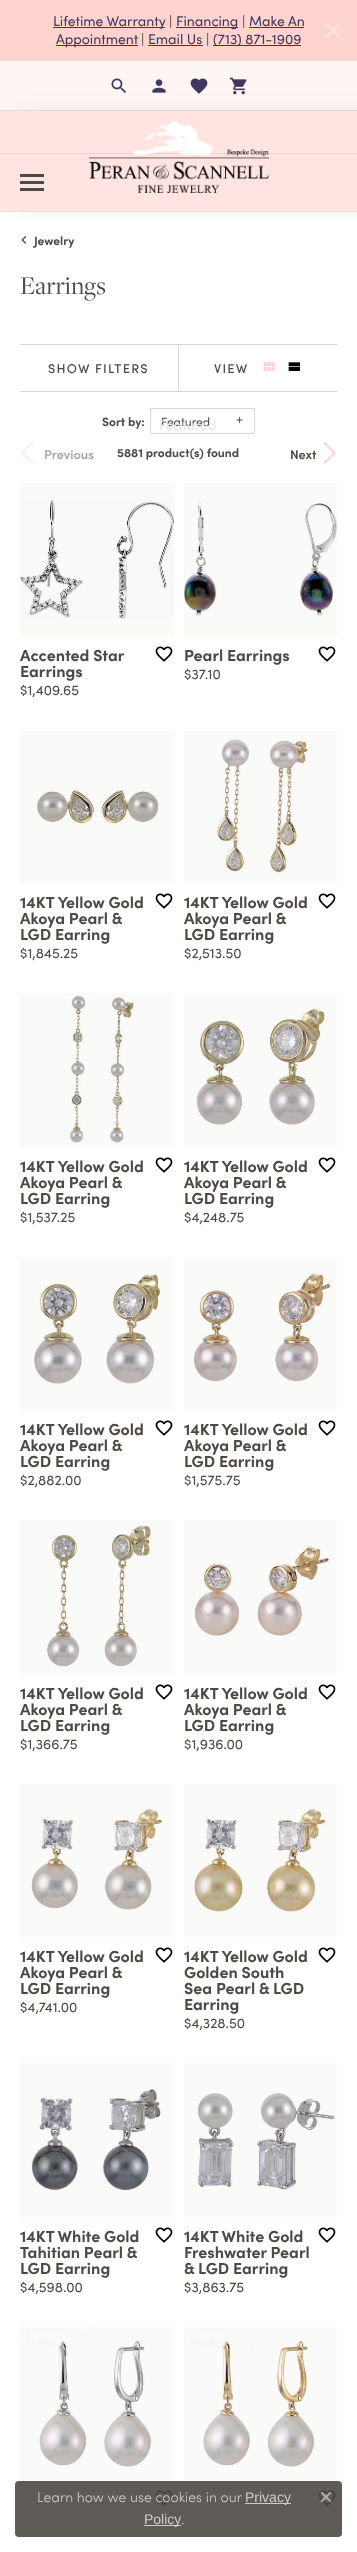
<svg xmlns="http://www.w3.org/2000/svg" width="357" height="2552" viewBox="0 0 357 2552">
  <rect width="100%" height="100%" fill="#ffd3ce"/>
  <path d="M53 27h112v1H53z" fill="#42385e"/>
  <path d="M176 27h62v1H176z" fill="#42385e"/>
  <path d="M249 27h55v1H249z" fill="#42385e"/>
  <image x="326" y="24" width="13" height="13" href="img/1.png"/>
  <path d="M56 45h82v1H56z" fill="#42385e"/>
  <path d="M148 45h55v1H148z" fill="#42385e"/>
  <path d="M213 45h88v1H213z" fill="#42385e"/>
  <path d="M0 61h357v50H0z" fill="#fdf6f5"/>
  <image x="111" y="78" width="15" height="15" href="img/2.png"/>
  <image x="152" y="79" width="14" height="14" href="img/3.png"/>
  <image x="190" y="78" width="18" height="16" href="img/4.png"/>
  <image x="229" y="77" width="18" height="18" href="img/5.png"/>
  <path d="M0 211h357v2341H0z" fill="#fff"/>
  <image x="21" y="236" width="6" height="8" href="img/7.png"/>
  <path d="M20 111h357v100H20z" fill="#0000000d" filter="blur(10px)"/>
  <path d="M-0.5 110.5h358v101H-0.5z" fill="none" stroke="#0000001a"/>
  <path d="M0 111h357v100H0z" fill="#ffe4e1"/>
  <path d="M0 153h357v1H0z" fill="#ecd3d0"/>
  <image x="89" y="121" width="180" height="72" href="img/6.png"/>
  <path d="M20 174h24v3H20z" fill="#4d4945"/>
  <path d="M20 181h24v3H20z" fill="#4d4945"/>
  <path d="M20 188h24v3H20z" fill="#4d4945"/>
  <path d="M184 2327h153v153H184z" fill="#fafaf9"/>
  <path d="M20 2327h154v153H20z" fill="#fafaf9"/>
  <path d="M184 2063h153v154H184z" fill="#fafaf9"/>
  <path d="M20 2063h154v154H20z" fill="#fafaf9"/>
  <path d="M184 1784h153v153H184z" fill="#fafaf9"/>
  <path d="M20 1784h154v153H20z" fill="#fafaf9"/>
  <path d="M184 1520h153v154H184z" fill="#fafaf9"/>
  <path d="M20 1520h154v154H20z" fill="#fafaf9"/>
  <path d="M184 1257h153v153H184z" fill="#fafaf9"/>
  <path d="M20 1257h154v153H20z" fill="#fafaf9"/>
  <path d="M184 993h153v154H184z" fill="#fafaf9"/>
  <path d="M20 993h154v154H20z" fill="#fafaf9"/>
  <path d="M184 730h153v153H184z" fill="#fafaf9"/>
  <path d="M20 730h154v153H20z" fill="#fafaf9"/>
  <path d="M184 482h153v154H184z" fill="#fafaf9"/>
  <path d="M20 482h154v154H20z" fill="#fafaf9"/>
  <path d="M20 344h317v1H20z" fill="#d5d4d3"/>
  <path d="M178 345h1v46H178z" fill="#d9d7d6"/>
  <image x="263" y="362" width="12" height="9" href="img/8.png"/>
  <image x="288" y="362" width="12" height="9" href="img/9.png"/>
  <path d="M20 391h317v1H20z" fill="#d5d4d3"/>
  <path d="M150.5 408.5h104v25H150.5z" fill="none" stroke="#d9d7d6"/>
  <path d="M21.5 452.5L32 442L33.5 443.5L23 454Z" fill="#f7eff0"/>
  <path d="M23 452L33.5 462.5L32 464L21.5 453.5Z" fill="#f7eff0"/>
  <path d="M325 442L335.5 452.5L334 454L323.5 443.5Z" fill="#ffd3ce"/>
  <path d="M323.5 462.5L334 452L335.5 453.5L325 464Z" fill="#ffd3ce"/>
  <image x="20" y="500" width="154" height="119" href="img/10.png"/>
  <image x="155" y="646" width="18" height="16" href="img/11.png"/>
  <image x="184" y="502" width="153" height="114" href="img/12.png"/>
  <image x="318" y="646" width="18" height="16" href="img/11.png"/>
  <image x="36" y="790" width="123" height="34" href="img/13.png"/>
  <image x="155" y="893" width="18" height="16" href="img/11.png"/>
  <image x="217" y="739" width="92" height="134" href="img/14.png"/>
  <image x="318" y="893" width="18" height="16" href="img/11.png"/>
  <image x="70" y="995" width="64" height="148" href="img/15.png"/>
  <image x="155" y="1157" width="18" height="16" href="img/11.png"/>
  <image x="196" y="1008" width="129" height="117" href="img/16.png"/>
  <image x="318" y="1157" width="18" height="16" href="img/11.png"/>
  <image x="34" y="1274" width="127" height="110" href="img/17.png"/>
  <image x="155" y="1420" width="18" height="16" href="img/11.png"/>
  <image x="193" y="1273" width="138" height="109" href="img/18.png"/>
  <image x="318" y="1420" width="18" height="16" href="img/11.png"/>
  <image x="47" y="1525" width="105" height="142" href="img/19.png"/>
  <image x="155" y="1684" width="18" height="16" href="img/11.png"/>
  <image x="194" y="1546" width="136" height="90" href="img/20.png"/>
  <image x="318" y="1684" width="18" height="16" href="img/11.png"/>
  <image x="31" y="1808" width="132" height="102" href="img/21.png"/>
  <image x="155" y="1947" width="18" height="16" href="img/11.png"/>
  <image x="194" y="1808" width="132" height="104" href="img/22.png"/>
  <image x="318" y="1947" width="18" height="16" href="img/11.png"/>
  <image x="30" y="2089" width="131" height="102" href="img/23.png"/>
  <image x="155" y="2227" width="18" height="16" href="img/11.png"/>
  <image x="197" y="2093" width="138" height="97" href="img/24.png"/>
  <image x="318" y="2227" width="18" height="16" href="img/11.png"/>
  <image x="26" y="2327" width="126" height="140" href="img/25.png"/>
  <image x="155" y="2490" width="18" height="16" href="img/11.png"/>
  <image x="190" y="2327" width="125" height="140" href="img/26.png"/>
  <image x="318" y="2490" width="18" height="16" href="img/11.png"/>
  <rect x="15" y="2481" width="327" height="56" rx="4" fill="#4d4945e6"/>
  <path d="M245 2503h46v1H245z" fill="#ccc"/>
  <path d="M144 2525h37v1H144z" fill="#ccc"/>
  <image x="320" y="2491" width="12" height="12" href="img/27.png"/>
  <text x="53" y="26" font-family="Sofia" font-size="14" fill="#42385e">Lifetime Warranty</text>
  <text x="169" y="26" font-family="Sofia" font-size="14" fill="#4d4945">|</text>
  <text x="176" y="26" font-family="Sofia" font-size="14" fill="#42385e">Financing</text>
  <text x="242" y="26" font-family="Sofia" font-size="14" fill="#4d4945">|</text>
  <g font-family="Sofia" font-size="14" fill="#42385e">
    <text x="249" y="26">Make An</text>
    <text x="56" y="44">Appointment</text>
  </g>
  <text x="141" y="44" font-family="Sofia" font-size="14" fill="#4d4945">|</text>
  <text x="148" y="44" font-family="Sofia" font-size="14" fill="#42385e">Email Us</text>
  <text x="206" y="44" font-family="Sofia" font-size="14" fill="#4d4945">|</text>
  <text x="213" y="44" font-family="Sofia" font-size="14" fill="#42385e">(713) 871-1909</text>
  <text x="34" y="245" font-family="Sofia" font-size="12" font-weight="bold" fill="#4d4945">Jewelry</text>
  <text x="20" y="294" font-family="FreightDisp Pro" font-size="26.5" fill="#4d4945">Earrings</text>
  <g font-family="Sofia" font-size="12.75" font-weight="500" letter-spacing="1.25" fill="#4d4945">
    <text x="48" y="373">SHOW FILTERS</text>
    <text x="214" y="373">VIEW</text>
  </g>
  <text x="102" y="426" font-family="Sofia" font-size="12" font-weight="bold" fill="#4d4945">Sort by:</text>
  <text x="161" y="426" font-family="Sofia" font-size="12" fill="#4d4945">Featured</text>
  <text x="236" y="424" font-family="Liberation Sans" font-size="12" fill="#4d4945">+</text>
  <text x="159" y="430" font-family="Sofia" font-size="14" fill="#e6e6e5">Featured</text>
  <text x="117" y="457" font-family="Sofia" font-size="12" font-weight="bold" fill="#4d4945">5881 product(s) found</text>
  <text x="44" y="459" font-family="Sofia" font-size="12.75" font-weight="600" fill="#a6a4a2">Previous</text>
  <text x="290" y="459" font-family="Sofia" font-size="12.75" font-weight="600" fill="#4d4945">Next</text>
  <g font-family="Sofia" font-size="16" font-weight="bold" fill="#4d4945">
    <text x="20" y="661">Accented Star</text>
    <text x="20" y="677">Earrings</text>
  </g>
  <text x="20" y="695" font-family="Sofia" font-size="14" fill="#4d4945">$1,409.65</text>
  <text x="184" y="661" font-family="Sofia" font-size="16" font-weight="bold" fill="#4d4945">Pearl Earrings</text>
  <text x="184" y="679" font-family="Sofia" font-size="14" fill="#4d4945">$37.10</text>
  <g font-family="Sofia" font-size="16" font-weight="bold" fill="#4d4945">
    <text x="20" y="908">14KT Yellow Gold</text>
    <text x="20" y="924">Akoya Pearl &amp;</text>
    <text x="20" y="940">LGD Earring</text>
  </g>
  <text x="20" y="958" font-family="Sofia" font-size="14" fill="#4d4945">$1,845.25</text>
  <g font-family="Sofia" font-size="16" font-weight="bold" fill="#4d4945">
    <text x="184" y="908">14KT Yellow Gold</text>
    <text x="184" y="924">Akoya Pearl &amp;</text>
    <text x="184" y="940">LGD Earring</text>
  </g>
  <text x="184" y="958" font-family="Sofia" font-size="14" fill="#4d4945">$2,513.50</text>
  <g font-family="Sofia" font-size="16" font-weight="bold" fill="#4d4945">
    <text x="20" y="1172">14KT Yellow Gold</text>
    <text x="20" y="1188">Akoya Pearl &amp;</text>
    <text x="20" y="1204">LGD Earring</text>
  </g>
  <text x="20" y="1222" font-family="Sofia" font-size="14" fill="#4d4945">$1,537.25</text>
  <g font-family="Sofia" font-size="16" font-weight="bold" fill="#4d4945">
    <text x="184" y="1172">14KT Yellow Gold</text>
    <text x="184" y="1188">Akoya Pearl &amp;</text>
    <text x="184" y="1204">LGD Earring</text>
  </g>
  <text x="184" y="1222" font-family="Sofia" font-size="14" fill="#4d4945">$4,248.75</text>
  <g font-family="Sofia" font-size="16" font-weight="bold" fill="#4d4945">
    <text x="20" y="1435">14KT Yellow Gold</text>
    <text x="20" y="1451">Akoya Pearl &amp;</text>
    <text x="20" y="1467">LGD Earring</text>
  </g>
  <text x="20" y="1485" font-family="Sofia" font-size="14" fill="#4d4945">$2,882.00</text>
  <g font-family="Sofia" font-size="16" font-weight="bold" fill="#4d4945">
    <text x="184" y="1435">14KT Yellow Gold</text>
    <text x="184" y="1451">Akoya Pearl &amp;</text>
    <text x="184" y="1467">LGD Earring</text>
  </g>
  <text x="184" y="1485" font-family="Sofia" font-size="14" fill="#4d4945">$1,575.75</text>
  <g font-family="Sofia" font-size="16" font-weight="bold" fill="#4d4945">
    <text x="20" y="1699">14KT Yellow Gold</text>
    <text x="20" y="1715">Akoya Pearl &amp;</text>
    <text x="20" y="1731">LGD Earring</text>
  </g>
  <text x="20" y="1749" font-family="Sofia" font-size="14" fill="#4d4945">$1,366.75</text>
  <g font-family="Sofia" font-size="16" font-weight="bold" fill="#4d4945">
    <text x="184" y="1699">14KT Yellow Gold</text>
    <text x="184" y="1715">Akoya Pearl &amp;</text>
    <text x="184" y="1731">LGD Earring</text>
  </g>
  <text x="184" y="1749" font-family="Sofia" font-size="14" fill="#4d4945">$1,936.00</text>
  <g font-family="Sofia" font-size="16" font-weight="bold" fill="#4d4945">
    <text x="20" y="1962">14KT Yellow Gold</text>
    <text x="20" y="1978">Akoya Pearl &amp;</text>
    <text x="20" y="1994">LGD Earring</text>
  </g>
  <text x="20" y="2012" font-family="Sofia" font-size="14" fill="#4d4945">$4,741.00</text>
  <g font-family="Sofia" font-size="16" font-weight="bold" fill="#4d4945">
    <text x="184" y="1962">14KT Yellow Gold</text>
    <text x="184" y="1978">Golden South</text>
    <text x="184" y="1994">Sea Pearl &amp; LGD</text>
    <text x="184" y="2010">Earring</text>
  </g>
  <text x="184" y="2028" font-family="Sofia" font-size="14" fill="#4d4945">$4,328.50</text>
  <g font-family="Sofia" font-size="16" font-weight="bold" fill="#4d4945">
    <text x="20" y="2242">14KT White Gold</text>
    <text x="20" y="2258">Tahitian Pearl &amp;</text>
    <text x="20" y="2274">LGD Earring</text>
  </g>
  <text x="20" y="2292" font-family="Sofia" font-size="14" fill="#4d4945">$4,598.00</text>
  <g font-family="Sofia" font-size="16" font-weight="bold" fill="#4d4945">
    <text x="184" y="2242">14KT White Gold</text>
    <text x="184" y="2258">Freshwater Pearl</text>
    <text x="184" y="2274">&amp; LGD Earring</text>
  </g>
  <text x="184" y="2292" font-family="Sofia" font-size="14" fill="#4d4945">$3,863.75</text>
  <text x="37" y="2502" font-family="Sofia" font-size="14" font-weight="300" fill="#ccc">Learn how we use cookies in our</text>
  <g font-family="Liberation Sans" font-size="14" fill="#ccc">
    <text x="245" y="2502">Privacy</text>
    <text x="144" y="2524">Policy</text>
  </g>
  <text x="181" y="2524" font-family="Sofia" font-size="14" font-weight="300" fill="#ccc">.</text>
</svg>
